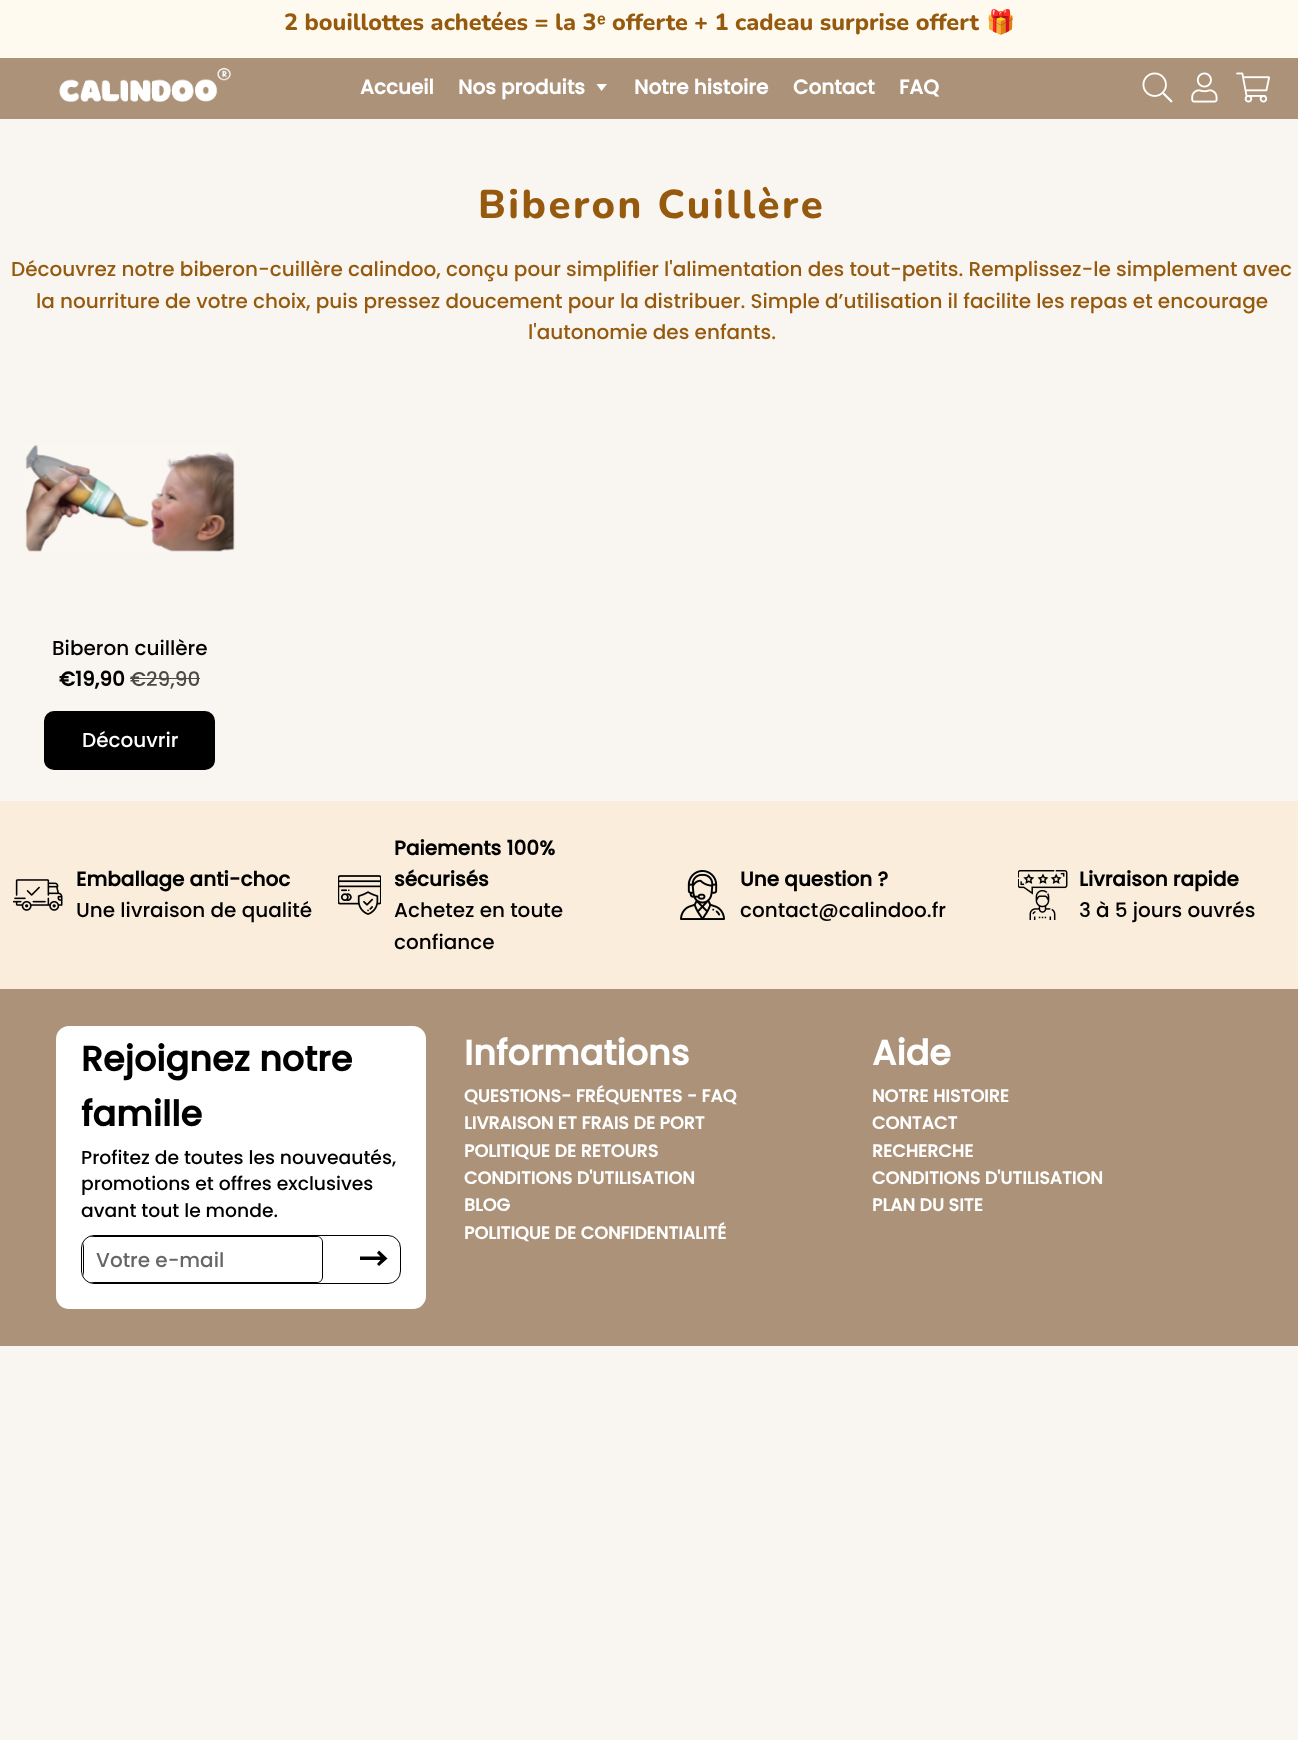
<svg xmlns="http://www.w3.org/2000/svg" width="1298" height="1740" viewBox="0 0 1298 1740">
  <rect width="100%" height="100%" fill="#f9f5f0"/>
  <path d="M0 0h1298v58H0z" fill="#fffaf0"/>
  <path d="M0 58h1298v61H0z" fill="#ab9279"/>
  <image x="59" y="68" width="172" height="34" href="img/1.png"/>
  <path d="M596.5 84L601.5 91L607 84Z" fill="#fff"/>
  <image x="1142" y="72" width="31" height="31" href="img/2.png"/>
  <image x="1191" y="72" width="27" height="31" href="img/3.png"/>
  <image x="1236" y="72" width="34" height="31" href="img/4.png"/>
  <image x="25" y="445" width="210" height="107" href="img/5.png"/>
  <path d="M130 678h70v1H130z" fill="#4b4a48"/>
  <rect x="44" y="711" width="171" height="59" rx="10" fill="#000"/>
  <path d="M0 801h1298v188H0z" fill="#faeddc"/>
  <image x="13" y="879" width="50" height="32" href="img/6.png"/>
  <image x="338" y="875" width="43" height="40" href="img/7.png"/>
  <image x="680" y="870" width="45" height="50" href="img/8.png"/>
  <image x="1018" y="870" width="50" height="50" href="img/9.png"/>
  <path d="M0 989h1298v357H0z" fill="#ab9279"/>
  <rect x="56" y="1026" width="370" height="283" rx="13" fill="#fff"/>
  <rect x="81.5" y="1235.5" width="319" height="48" rx="12.5" fill="none" stroke="#000"/>
  <path d="M83 1247V1272L84 1277V1242ZM94 1236L89 1237H317C320 1237 322 1239 322 1242V1277C322 1280 320 1282 317 1282H89L94 1283H317C320 1283 323 1280 323 1277V1242C323 1239 320 1236 317 1236Z" fill="#000" fill-rule="evenodd"/>
  <path d="M379 1250.5L377 1253L380.5 1256.5H360V1260H380.5L377 1264L379 1266L387.5 1258.5Z" fill="#000"/>
  <text x="284" y="30" font-family="Nunito" font-size="23.4" font-weight="800" fill="#965a0f">2 bouillottes achetées = la 3</text>
  <text x="597" y="30" font-family="Liberation Sans" font-size="23.4" font-weight="bold" fill="#965a0f">ᵉ</text>
  <g font-family="Nunito" font-size="23.4" font-weight="800" fill="#965a0f">
    <text x="612" y="30">offerte</text>
    <text x="694" y="30">+ 1 cadeau surprise offert</text>
  </g>
  <text x="986" y="30" font-family="Noto Color Emoji" font-size="23.4" font-weight="bold" fill="#965a0f">🎁</text>
  <g font-family="Poppins" font-size="20" font-weight="bold" fill="#fff">
    <text x="360" y="94">Accueil</text>
    <text x="458" y="94">Nos produits</text>
    <text x="634" y="94">Notre histoire</text>
    <text x="793" y="94">Contact</text>
    <text x="899" y="94">FAQ</text>
  </g>
  <text x="478" y="218" font-family="Nunito" font-size="40" font-weight="800" letter-spacing="2.5" fill="#965a0f">Biberon Cuillère</text>
  <g font-family="Poppins" font-size="20" font-weight="500" fill="#965a0f">
    <text x="11" y="276">Découvrez notre biberon-cuillère calindoo, conçu pour simplifier l'alimentation des tout-petits. Remplissez-le simplement avec</text>
    <text x="36" y="308">la nourriture de votre choix, puis pressez doucement pour la distribuer. Simple d’utilisation il facilite les repas et encourage</text>
    <text x="528" y="339">l'autonomie des enfants.</text>
  </g>
  <text x="52" y="655" font-family="Poppins" font-size="20" font-weight="500" fill="#000">Biberon cuillère</text>
  <text x="59" y="686" font-family="Poppins" font-size="20" font-weight="bold" fill="#000">€19,90</text>
  <text x="130" y="686" font-family="Poppins" font-size="20" font-weight="500" fill="#4b4a48">€29,90</text>
  <text x="82" y="747" font-family="Poppins" font-size="20" font-weight="500" fill="#fff">Découvrir</text>
  <text x="76" y="886" font-family="Poppins" font-size="20" font-weight="bold" fill="#000">Emballage anti-choc</text>
  <text x="76" y="917" font-family="Poppins" font-size="20" font-weight="500" fill="#000">Une livraison de qualité</text>
  <g font-family="Poppins" font-size="20" font-weight="bold" fill="#000">
    <text x="394" y="855">Paiements 100%</text>
    <text x="394" y="886">sécurisés</text>
  </g>
  <g font-family="Poppins" font-size="20" font-weight="500" fill="#000">
    <text x="394" y="917">Achetez en toute</text>
    <text x="394" y="949">confiance</text>
  </g>
  <text x="740" y="886" font-family="Poppins" font-size="20" font-weight="bold" fill="#000">Une question ?</text>
  <text x="740" y="917" font-family="Poppins" font-size="20" font-weight="500" fill="#000">contact@calindoo.fr</text>
  <text x="1079" y="886" font-family="Poppins" font-size="20" font-weight="bold" fill="#000">Livraison rapide</text>
  <text x="1079" y="917" font-family="Poppins" font-size="20" font-weight="500" fill="#000">3 à 5 jours ouvrés</text>
  <g font-family="Poppins" font-size="35" font-weight="bold" fill="#000">
    <text x="81" y="1071">Rejoignez notre</text>
    <text x="81" y="1126">famille</text>
  </g>
  <g font-family="Poppins" font-size="18.75" font-weight="500" fill="#000">
    <text x="81" y="1164">Profitez de toutes les nouveautés,</text>
    <text x="81" y="1190">promotions et offres exclusives</text>
    <text x="81" y="1217">avant tout le monde.</text>
  </g>
  <text x="96" y="1267" font-family="Poppins" font-size="20" font-weight="500" fill="#666">Votre e-mail</text>
  <text x="464" y="1065" font-family="Poppins" font-size="35" font-weight="bold" fill="#fff">Informations</text>
  <g font-family="Poppins" font-size="17.5" font-weight="bold" fill="#fff">
    <text x="464" y="1102">QUESTIONS- FRÉQUENTES - FAQ</text>
    <text x="464" y="1129">LIVRAISON ET FRAIS DE PORT</text>
    <text x="464" y="1157">POLITIQUE DE RETOURS</text>
    <text x="464" y="1184">CONDITIONS D'UTILISATION</text>
    <text x="464" y="1211">BLOG</text>
    <text x="464" y="1239">POLITIQUE DE CONFIDENTIALITÉ</text>
  </g>
  <text x="872" y="1065" font-family="Poppins" font-size="35" font-weight="bold" fill="#fff">Aide</text>
  <g font-family="Poppins" font-size="17.5" font-weight="bold" fill="#fff">
    <text x="872" y="1102">NOTRE HISTOIRE</text>
    <text x="872" y="1129">CONTACT</text>
    <text x="872" y="1157">RECHERCHE</text>
    <text x="872" y="1184">CONDITIONS D'UTILISATION</text>
    <text x="872" y="1211">PLAN DU SITE</text>
  </g>
</svg>
